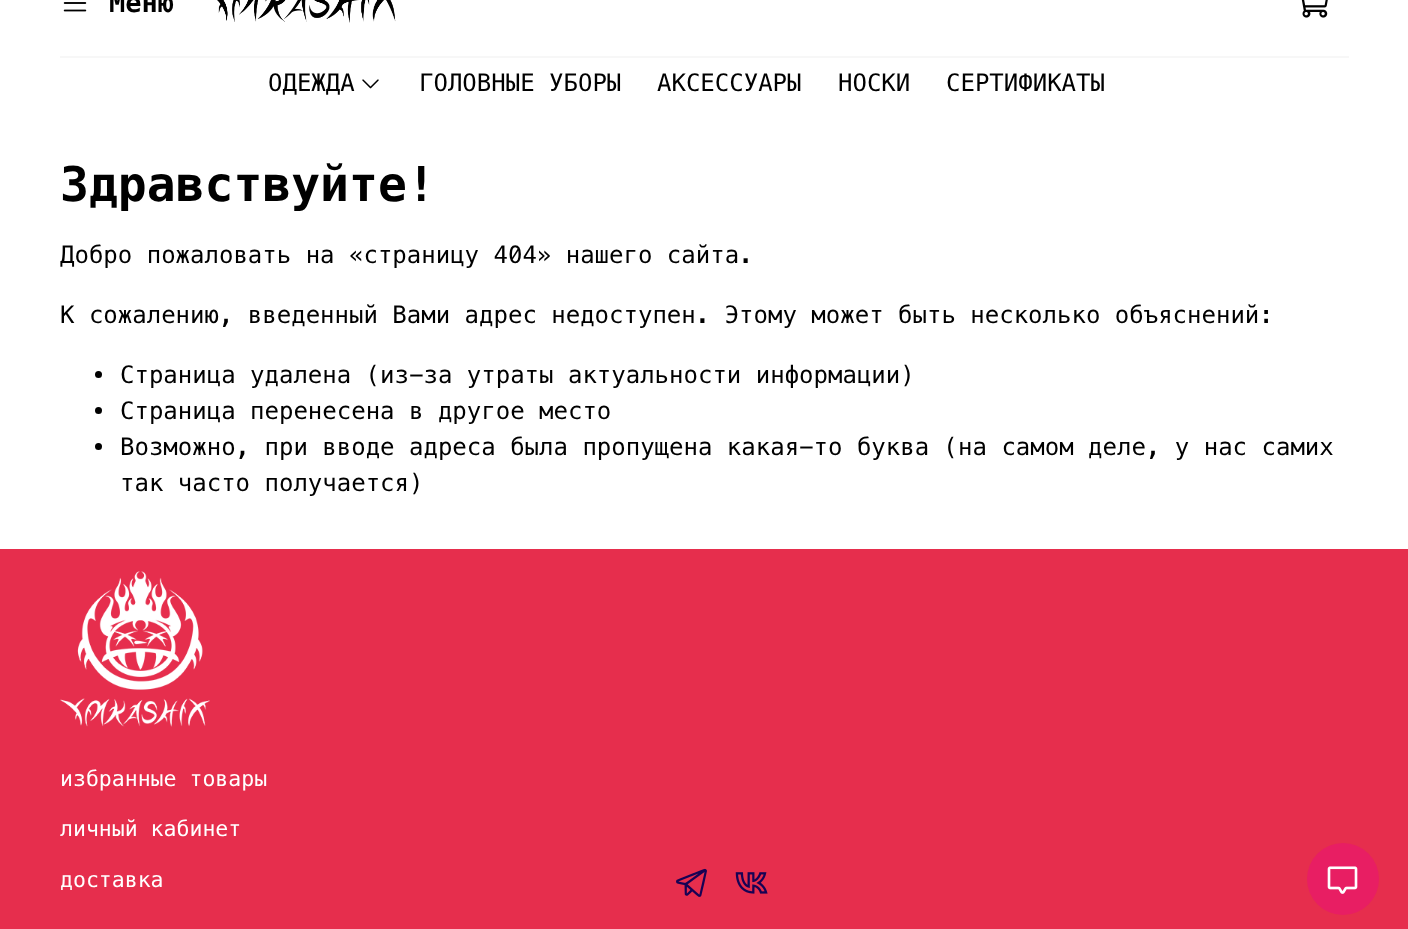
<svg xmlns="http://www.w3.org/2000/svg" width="1408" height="929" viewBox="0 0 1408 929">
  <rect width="100%" height="100%" fill="#fff"/>
  <image x="63" y="2" width="24" height="10" href="img/1.png"/>
  <image x="217" y="0" width="179" height="23" href="img/2.png"/>
  <image x="1301" y="0" width="27" height="18" href="img/3.png"/>
  <path d="M60 56h1289v2H60z" fill="#f7f7f7"/>
  <image x="362" y="79" width="17" height="10" href="img/4.png"/>
  <circle cx="98.5" cy="374.5" r="3.5" fill="#000"/>
  <circle cx="98.5" cy="410.5" r="3.5" fill="#000"/>
  <circle cx="98.5" cy="446.5" r="3.5" fill="#000"/>
  <path d="M0 549h1408v380H0z" fill="#e62e4d"/>
  <image x="60" y="571" width="150" height="156" href="img/5.png"/>
  <image x="676" y="868" width="31" height="29" href="img/6.png"/>
  <image x="735" y="872" width="33" height="22" href="img/7.png"/>
  <circle cx="1343" cy="879" r="36" fill="#e81e63"/>
  <image x="1327" y="866" width="31" height="28" href="img/8.png"/>
  <text x="109" y="12" font-family="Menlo" font-size="27" font-weight="bold" fill="#000">Меню</text>
  <g font-family="Menlo" font-size="24" fill="#000">
    <text x="268" y="91">ОДЕЖДА</text>
    <text x="419" y="91">ГОЛОВНЫЕ УБОРЫ</text>
    <text x="657" y="91">АКСЕССУАРЫ</text>
    <text x="838" y="91">НОСКИ</text>
    <text x="946" y="91">СЕРТИФИКАТЫ</text>
  </g>
  <text x="60" y="201" font-family="Menlo" font-size="48" font-weight="bold" fill="#000">Здравствуйте!</text>
  <g font-family="Menlo" font-size="24" fill="#000">
    <text x="60" y="263">Добро пожаловать на «страницу 404» нашего сайта.</text>
    <text x="60" y="323">К сожалению, введенный Вами адрес недоступен. Этому может быть несколько объяснений:</text>
    <text x="120" y="383">Страница удалена (из-за утраты актуальности информации)</text>
    <text x="120" y="419">Страница перенесена в другое место</text>
    <text x="120" y="455">Возможно, при вводе адреса была пропущена какая-то буква (на самом деле, у нас самих</text>
    <text x="120" y="491">так часто получается)</text>
  </g>
  <g font-family="Menlo" font-size="21.5" fill="#fff">
    <text x="60" y="786">избранные товары</text>
    <text x="60" y="836">личный кабинет</text>
    <text x="60" y="887">доставка</text>
  </g>
</svg>
